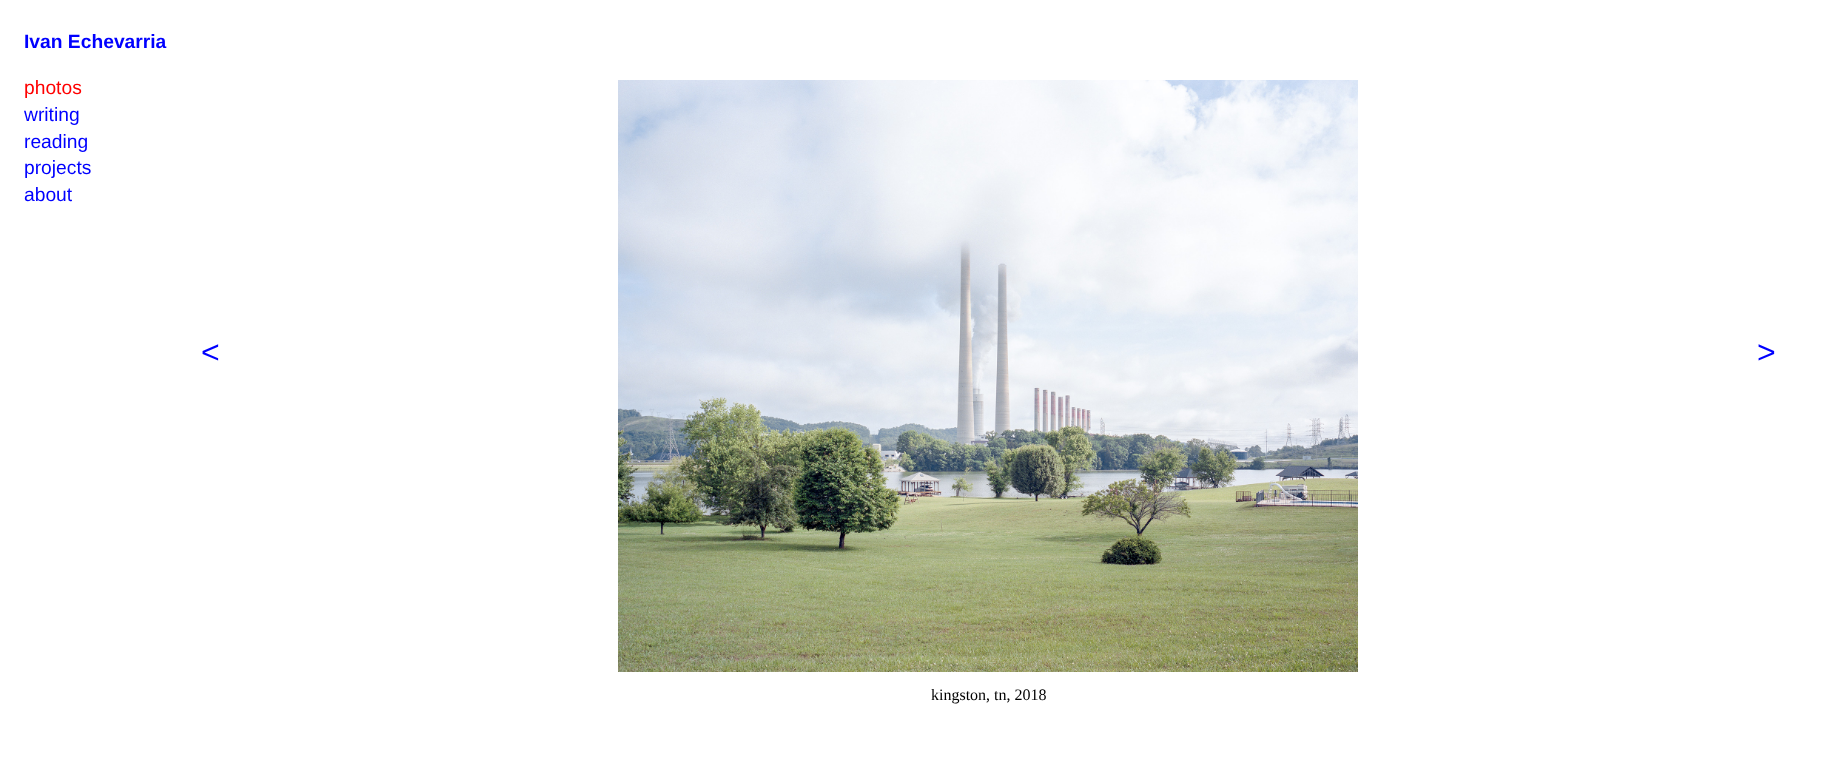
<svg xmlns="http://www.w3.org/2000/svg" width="1835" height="768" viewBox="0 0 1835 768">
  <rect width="100%" height="100%" fill="#fff"/>
  <image x="618" y="80" width="740" height="592" href="img/1.png"/>
  <text x="24" y="48" font-family="Liberation Sans" font-size="19.25" font-weight="bold" fill="#00f">Ivan Echevarria</text>
  <text x="24" y="94" font-family="Liberation Sans" font-size="19.25" fill="#f00">photos</text>
  <g font-family="Liberation Sans" font-size="19.25" fill="#00f">
    <text x="24" y="121">writing</text>
    <text x="24" y="148">reading</text>
    <text x="24" y="174">projects</text>
    <text x="24" y="201">about</text>
  </g>
  <g font-family="Liberation Sans" font-size="32" fill="#00f">
    <text x="201" y="363">&lt;</text>
    <text x="1757" y="363">&gt;</text>
  </g>
  <text x="931" y="700" font-family="Liberation Serif" font-size="16" fill="#000">kingston, tn, 2018</text>
</svg>
